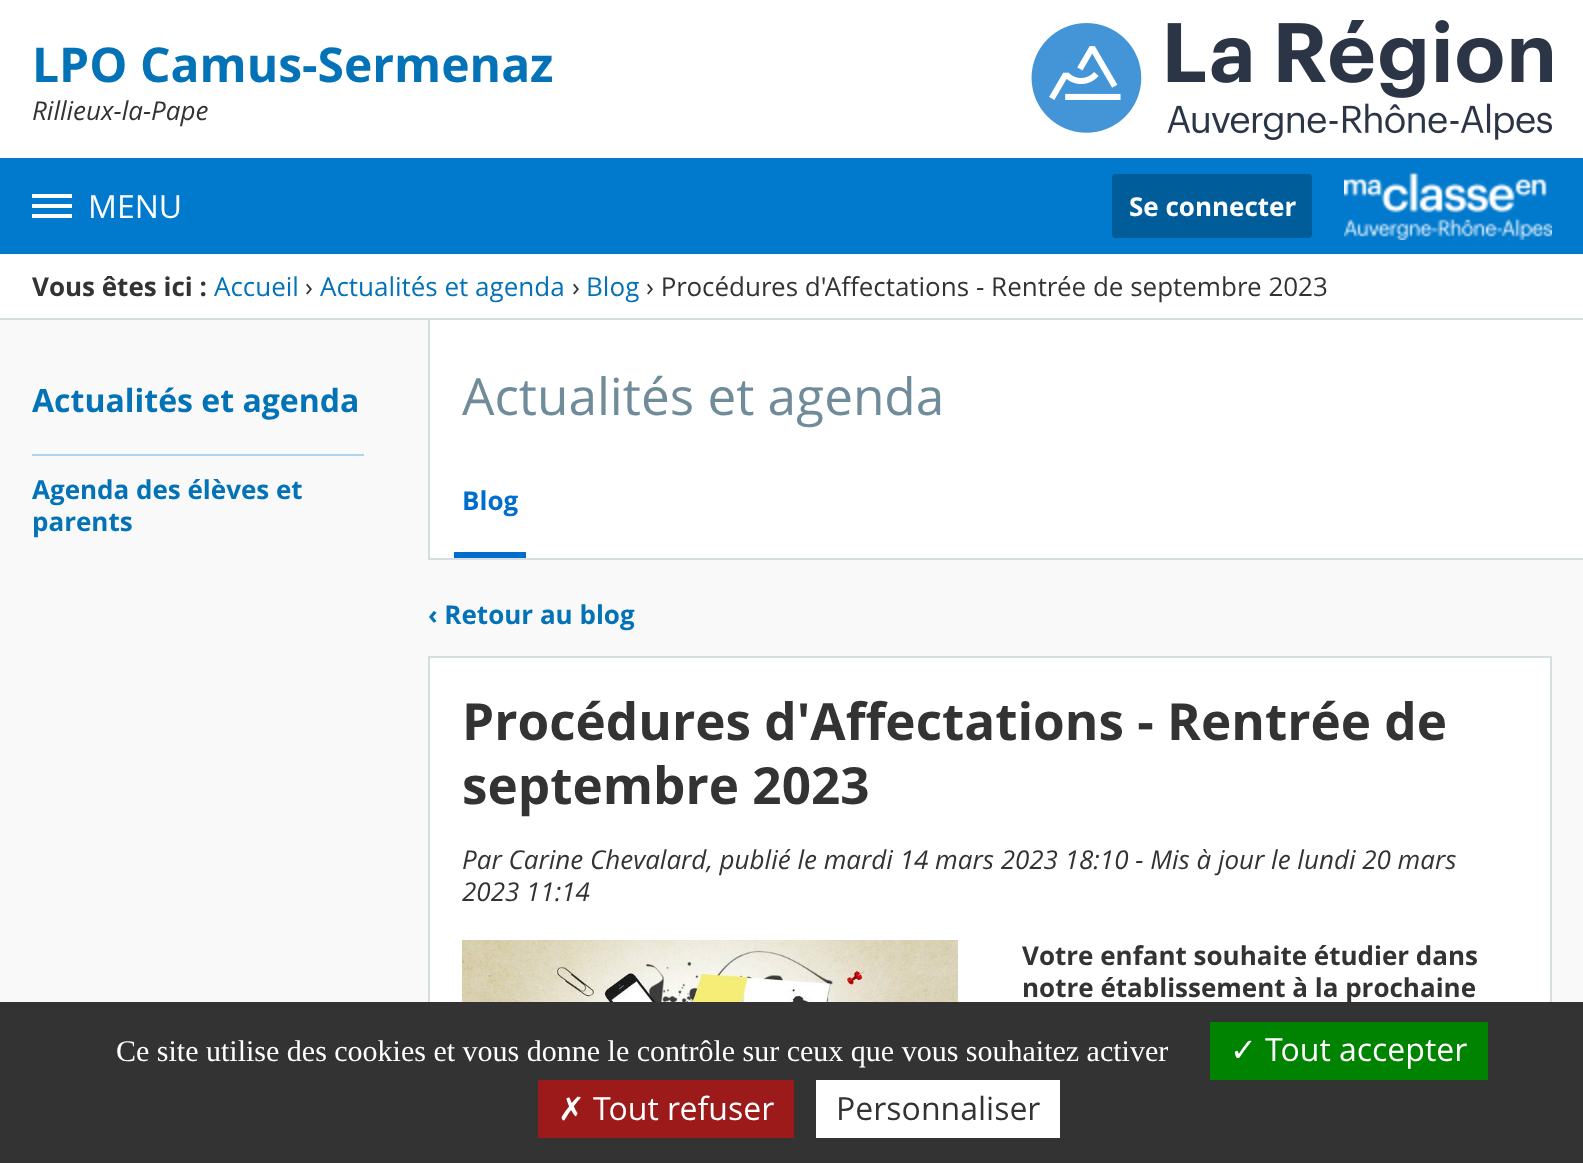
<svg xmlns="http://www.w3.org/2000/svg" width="1583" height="1163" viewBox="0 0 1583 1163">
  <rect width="100%" height="100%" fill="#fff"/>
  <image x="1031" y="20" width="521" height="120" href="img/1.png"/>
  <path d="M0 158h1583v96H0z" fill="#017acd"/>
  <image x="1344" y="172" width="208" height="68" href="img/2.png"/>
  <path d="M32 194h40v4H32z" fill="#fff"/>
  <path d="M32 204h40v4H32z" fill="#fff"/>
  <path d="M32 214h40v4H32z" fill="#fff"/>
  <rect x="1112" y="174" width="200" height="64" rx="4" fill="#015c9a"/>
  <path d="M0 318h1583v2H0z" fill="#d7dee2"/>
  <path d="M0 320h1583v682H0z" fill="#f9f9f9"/>
  <path d="M32 454h332v2H32z" fill="#afd3ec"/>
  <path d="M430 320h1153v238H430z" fill="#fff"/>
  <path d="M428 558h1155v2H428z" fill="#d7dee2"/>
  <path d="M428 320h2v240H428z" fill="#d7dee2"/>
  <path d="M454 552h72v6H454z" fill="#006dcc"/>
  <path d="M430 658h1120v344H430z" fill="#fff"/>
  <path d="M429 657h1122v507H429z" fill="none" stroke="#d7dee2" stroke-width="2"/>
  <image x="462" y="940" width="496" height="62" href="img/3.png"/>
  <path d="M0 1002h1583v161H0z" fill="#333"/>
  <path d="M1210 1022h278v58H1210z" fill="#008300"/>
  <path d="M538 1080h256v58H538z" fill="#9c1a1a"/>
  <path d="M816 1080h244v58H816z" fill="#fff"/>
  <text x="32" y="82" font-family="Open Sans" font-size="48" font-weight="bold" fill="#0372b7">LPO Camus-Sermenaz</text>
  <text x="32" y="120" font-family="Open Sans" font-size="26" font-style="italic" fill="#333">Rillieux-la-Pape</text>
  <text x="88" y="218" font-family="Open Sans" font-size="32" fill="#fff">MENU</text>
  <text x="1129" y="216" font-family="Open Sans" font-size="26" font-weight="bold" fill="#fff">Se connecter</text>
  <text x="32" y="296" font-family="Open Sans" font-size="26" font-weight="bold" fill="#333">Vous êtes ici :</text>
  <text x="214" y="296" font-family="Open Sans" font-size="26" fill="#0372b7">Accueil</text>
  <text x="305" y="296" font-family="Open Sans" font-size="26" fill="#333">›</text>
  <text x="320" y="296" font-family="Open Sans" font-size="26" fill="#0372b7">Actualités et agenda</text>
  <text x="572" y="296" font-family="Open Sans" font-size="26" fill="#333">›</text>
  <text x="586" y="296" font-family="Open Sans" font-size="26" fill="#0372b7">Blog</text>
  <text x="646" y="296" font-family="Open Sans" font-size="26" fill="#333">› Procédures d'Affectations - Rentrée de septembre 2023</text>
  <text x="32" y="412" font-family="Open Sans" font-size="32" font-weight="bold" fill="#0372b7">Actualités et agenda</text>
  <g font-family="Open Sans" font-size="26" font-weight="bold" fill="#0372b7">
    <text x="32" y="499">Agenda des élèves et</text>
    <text x="32" y="531">parents</text>
  </g>
  <text x="462" y="415" font-family="Open Sans" font-size="51.25" fill="#708c9a">Actualités et agenda</text>
  <text x="462" y="510" font-family="Open Sans" font-size="26" font-weight="bold" fill="#006dcc">Blog</text>
  <text x="428" y="624" font-family="Open Sans" font-size="26" font-weight="bold" fill="#0372b7">‹ Retour au blog</text>
  <g font-family="Open Sans" font-size="51.25" font-weight="bold" fill="#333">
    <text x="462" y="740">Procédures d'Affectations - Rentrée de</text>
    <text x="462" y="804">septembre 2023</text>
  </g>
  <g font-family="Open Sans" font-size="26" font-style="italic" fill="#333">
    <text x="462" y="869">Par Carine Chevalard, publié le mardi 14 mars 2023 18:10 - Mis à jour le lundi 20 mars</text>
    <text x="462" y="901">2023 11:14</text>
  </g>
  <g font-family="Open Sans" font-size="26" font-weight="bold" fill="#333">
    <text x="1022" y="965">Votre enfant souhaite étudier dans</text>
    <text x="1022" y="997">notre établissement à la prochaine</text>
  </g>
  <text x="116" y="1061" font-family="Liberation Serif" font-size="30" fill="#fff">Ce site utilise des cookies et vous donne le contrôle sur ceux que vous souhaitez activer</text>
  <text x="1230" y="1061" font-family="DejaVu Sans" font-size="32" fill="#fff">✓</text>
  <text x="1265" y="1061" font-family="Open Sans" font-size="32" fill="#fff">Tout accepter</text>
  <text x="558" y="1120" font-family="DejaVu Sans" font-size="32" fill="#fff">✗</text>
  <text x="593" y="1120" font-family="Open Sans" font-size="32" fill="#fff">Tout refuser</text>
  <text x="836" y="1120" font-family="Open Sans" font-size="32" fill="#333">Personnaliser</text>
</svg>
